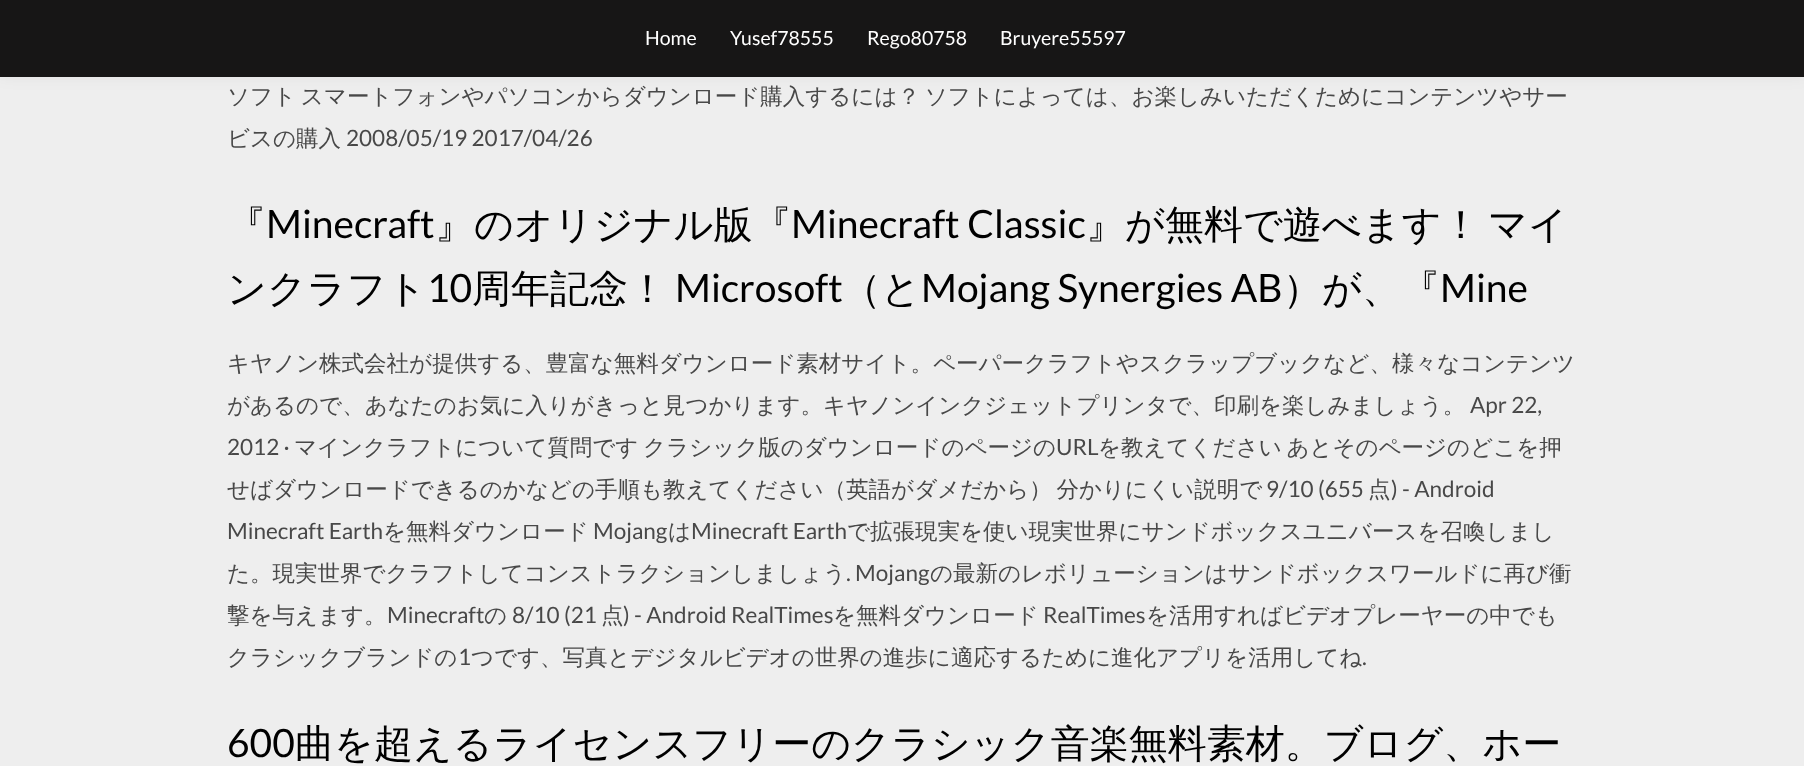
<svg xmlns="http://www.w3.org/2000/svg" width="1804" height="766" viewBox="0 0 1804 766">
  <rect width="100%" height="100%" fill="#eee"/>
  <path d="M0 0h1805v77H0z" fill="#0000000d" filter="blur(7.5px)"/>
  <path d="M0 0h1804v77H0z" fill="#171616"/>
  <g font-family="Lato" font-size="19.5" fill="#fff">
    <text x="645" y="45">Home</text>
    <text x="730" y="45">Yusef78555</text>
    <text x="867" y="45">Rego80758</text>
    <text x="1000" y="45">Bruyere55597</text>
  </g>
  <g font-family="WenQuanYi Zen Hei" font-size="22.5" font-weight="500" fill="#484848">
    <text x="227" y="104" word-spacing="-2">ソフト スマートフォンやパソコンからダウンロード購入するには？ ソフトによっては、お楽しみいただくためにコンテンツやサー</text>
    <text x="227" y="146">ビスの購入</text>
  </g>
  <text x="346" y="146" font-family="Lato" font-size="22.5" fill="#484848">2008/05/19 2017/04/26</text>
  <text x="227" y="238" font-family="WenQuanYi Zen Hei" font-size="39" font-weight="500" fill="#000">『</text>
  <text x="266" y="238" font-family="Lato" font-size="39" fill="#000">Minecraft</text>
  <text x="435" y="238" font-family="WenQuanYi Zen Hei" font-size="39" font-weight="500" fill="#000">』のオリジナル版『</text>
  <text x="791" y="238" font-family="Lato" font-size="39" fill="#000">Minecraft Classic</text>
  <g font-family="WenQuanYi Zen Hei" font-size="39" font-weight="500" fill="#000">
    <text x="1086" y="238">』が無料で遊べます！</text>
    <text x="1488" y="238">マイ</text>
    <text x="227" y="302">ンクラフト</text>
  </g>
  <text x="427" y="302" font-family="Lato" font-size="39" fill="#000">10</text>
  <text x="472" y="302" font-family="WenQuanYi Zen Hei" font-size="39" font-weight="500" fill="#000">周年記念！</text>
  <text x="675" y="302" font-family="Lato" font-size="39" fill="#000">Microsoft</text>
  <text x="842" y="302" font-family="WenQuanYi Zen Hei" font-size="39" font-weight="500" fill="#000">（と</text>
  <text x="921" y="302" font-family="Lato" font-size="39" fill="#000">Mojang Synergies AB</text>
  <text x="1283" y="302" font-family="WenQuanYi Zen Hei" font-size="39" font-weight="500" fill="#000">）が、『</text>
  <text x="1440" y="302" font-family="Lato" font-size="39" fill="#000">Mine</text>
  <g font-family="WenQuanYi Zen Hei" font-size="22.5" font-weight="500" fill="#484848">
    <text x="227" y="371">キヤノン株式会社が提供する、豊富な無料ダウンロード素材サイト。ペーパークラフトやスクラップブックなど、様々なコンテンツ</text>
    <text x="227" y="413">があるので、あなたのお気に入りがきっと見つかります。キヤノンインクジェットプリンタで、印刷を楽しみましょう。</text>
  </g>
  <g font-family="Lato" font-size="22.5" fill="#484848">
    <text x="1470" y="413">Apr 22,</text>
    <text x="227" y="455">2012 ·</text>
  </g>
  <text x="294" y="455" word-spacing="-2" font-family="WenQuanYi Zen Hei" font-size="22.5" font-weight="500" fill="#484848">マインクラフトについて質問です クラシック版のダウンロードのページの</text>
  <text x="1056" y="455" font-family="Lato" font-size="22.5" fill="#484848">URL</text>
  <g font-family="WenQuanYi Zen Hei" font-size="22.5" font-weight="500" fill="#484848">
    <text x="1098" y="455" word-spacing="-2">を教えてください あとそのページのどこを押</text>
    <text x="227" y="497" word-spacing="-2">せばダウンロードできるのかなどの手順も教えてください（英語がダメだから） 分かりにくい説明で</text>
  </g>
  <text x="1266" y="497" font-family="Lato" font-size="22.5" fill="#484848">9/10 (655</text>
  <text x="1368" y="497" font-family="WenQuanYi Zen Hei" font-size="22.5" font-weight="500" fill="#484848">点</text>
  <g font-family="Lato" font-size="22.5" fill="#484848">
    <text x="1391" y="497">) - Android</text>
    <text x="227" y="539">Minecraft Earth</text>
  </g>
  <text x="383" y="539" font-family="WenQuanYi Zen Hei" font-size="22.5" font-weight="500" fill="#484848">を無料ダウンロード</text>
  <text x="593" y="539" font-family="Lato" font-size="22.5" fill="#484848">Mojang</text>
  <text x="668" y="539" font-family="WenQuanYi Zen Hei" font-size="22.5" font-weight="500" fill="#484848">は</text>
  <text x="691" y="539" font-family="Lato" font-size="22.5" fill="#484848">Minecraft Earth</text>
  <g font-family="WenQuanYi Zen Hei" font-size="22.5" font-weight="500" fill="#484848">
    <text x="847" y="539">で拡張現実を使い現実世界にサンドボックスユニバースを召喚しまし</text>
    <text x="227" y="581">た。現実世界でクラフトしてコンストラクションしましょう</text>
  </g>
  <text x="846" y="581" font-family="Lato" font-size="22.5" fill="#484848">. Mojang</text>
  <g font-family="WenQuanYi Zen Hei" font-size="22.5" font-weight="500" fill="#484848">
    <text x="930" y="581">の最新のレボリューションはサンドボックスワールドに再び衝</text>
    <text x="227" y="623">撃を与えます。</text>
  </g>
  <text x="387" y="623" font-family="Lato" font-size="22.5" fill="#484848">Minecraft</text>
  <text x="484" y="623" font-family="WenQuanYi Zen Hei" font-size="22.5" font-weight="500" fill="#484848">の</text>
  <text x="512" y="623" font-family="Lato" font-size="22.5" fill="#484848">8/10 (21</text>
  <text x="601" y="623" font-family="WenQuanYi Zen Hei" font-size="22.5" font-weight="500" fill="#484848">点</text>
  <text x="623" y="623" font-family="Lato" font-size="22.5" fill="#484848">) - Android RealTimes</text>
  <text x="833" y="623" font-family="WenQuanYi Zen Hei" font-size="22.5" font-weight="500" fill="#484848">を無料ダウンロード</text>
  <text x="1043" y="623" font-family="Lato" font-size="22.5" fill="#484848">RealTimes</text>
  <g font-family="WenQuanYi Zen Hei" font-size="22.5" font-weight="500" fill="#484848">
    <text x="1146" y="623">を活用すればビデオプレーヤーの中でも</text>
    <text x="227" y="665">クラシックブランドの</text>
  </g>
  <text x="458" y="665" font-family="Lato" font-size="22.5" fill="#484848">1</text>
  <text x="471" y="665" font-family="WenQuanYi Zen Hei" font-size="22.5" font-weight="500" fill="#484848">つです、写真とデジタルビデオの世界の進歩に適応するために進化アプリを活用してね</text>
  <text x="1362" y="665" font-family="Lato" font-size="22.5" fill="#484848">.</text>
  <text x="227" y="757" font-family="Lato" font-size="39" fill="#000">600</text>
  <text x="295" y="757" font-family="WenQuanYi Zen Hei" font-size="39" font-weight="500" fill="#000">曲を超えるライセンスフリーのクラシック音楽無料素材。ブログ、ホー</text>
</svg>
